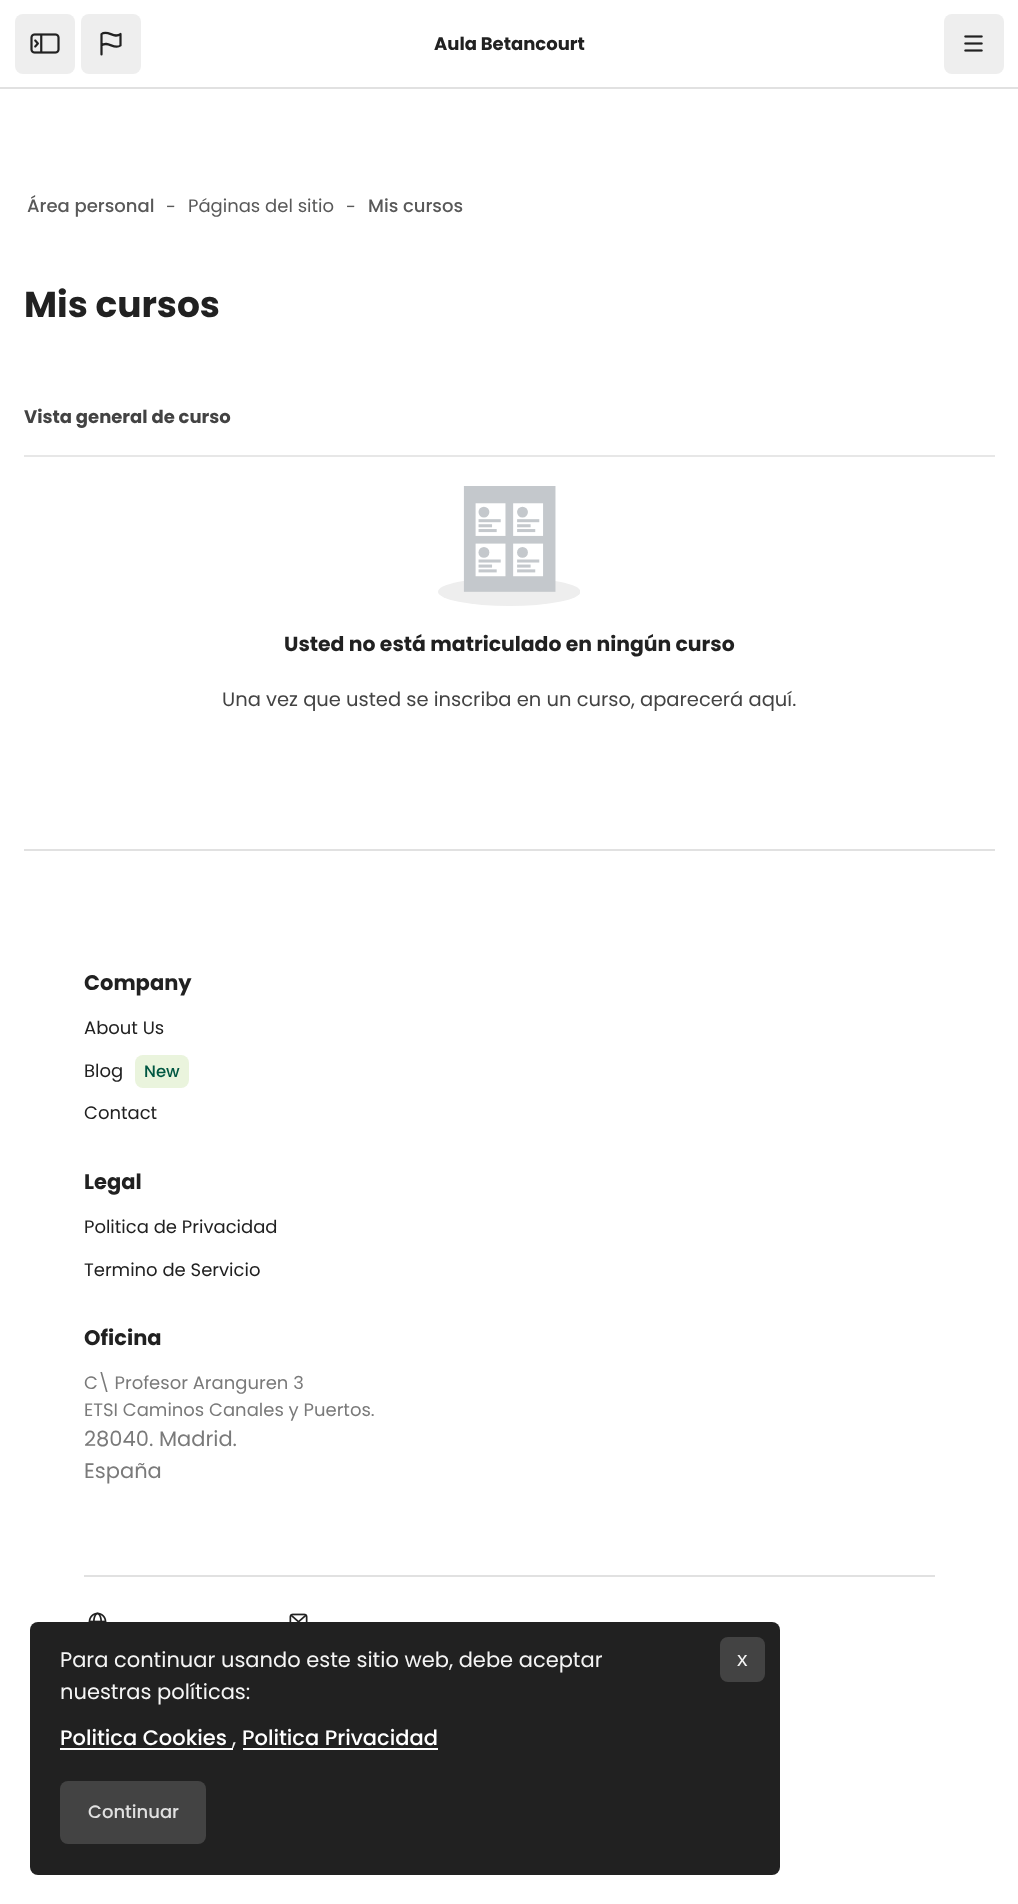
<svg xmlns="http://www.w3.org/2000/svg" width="1018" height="1904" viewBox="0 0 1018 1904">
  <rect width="100%" height="100%" fill="#fff"/>
  <path d="M0 87h1018v2H0z" fill="#e1e1e1"/>
  <rect x="15" y="14" width="60" height="60" rx="8" fill="#eee"/>
  <image x="30" y="33" width="30" height="21" href="img/1.png"/>
  <rect x="81" y="14" width="60" height="60" rx="8" fill="#eee"/>
  <path d="M101.5 54.5V45.5M101.5 45.5V34C108 29 114 39.5 120.5 34V45.5C114 50.5 108 40 101.5 45.5Z" fill="none" stroke="#212121" stroke-width="2.2" stroke-linecap="round" stroke-linejoin="round"/>
  <rect x="944" y="14" width="60" height="60" rx="8" fill="#eee"/>
  <image x="964" y="35" width="19" height="17" href="img/2.png"/>
  <path d="M24 455h971v2H24z" fill="#e7e7e7"/>
  <image x="438" y="486" width="142" height="120" href="img/3.png"/>
  <path d="M24 849h971v2H24z" fill="#e1e1e1"/>
  <rect x="135" y="1055" width="54" height="33" rx="8" fill="#eaf4dd"/>
  <path d="M84 1575h851v2H84z" fill="#e1e1e1"/>
  <image x="88" y="1612" width="19" height="10" href="img/4.png"/>
  <image x="289" y="1613" width="19" height="9" href="img/5.png"/>
  <rect x="30" y="1622" width="750" height="253" rx="8" fill="#212121"/>
  <path d="M60 1748h173v2H60z" fill="#fff"/>
  <path d="M243 1748h195v2H243z" fill="#fff"/>
  <rect x="720" y="1637" width="45" height="45" rx="8" fill="#434343"/>
  <rect x="60" y="1781" width="146" height="63" rx="8" fill="#434343"/>
  <text x="434" y="50" font-family="Poppins" font-size="18" font-weight="bold" fill="#212121">Aula Betancourt</text>
  <text x="27" y="212" font-family="Poppins" font-size="18" font-weight="500" fill="#595959">Área personal</text>
  <g font-family="Poppins" font-size="18" fill="#595959">
    <text x="166" y="213">-</text>
    <text x="188" y="212">Páginas del sitio</text>
    <text x="346" y="213">-</text>
  </g>
  <text x="368" y="212" font-family="Poppins" font-size="18" font-weight="500" fill="#595959">Mis cursos</text>
  <text x="24" y="317" font-family="Poppins" font-size="36" font-weight="bold" fill="#212121">Mis cursos</text>
  <text x="24" y="423" font-family="Poppins" font-size="18" font-weight="bold" fill="#434343">Vista general de curso</text>
  <text x="284" y="651" font-family="Poppins" font-size="20.4" font-weight="bold" fill="#212121">Usted no está matriculado en ningún curso</text>
  <text x="222" y="706" font-family="Poppins" font-size="19.5" fill="#434343">Una vez que usted se inscriba en un curso, aparecerá aquí.</text>
  <text x="84" y="990" font-family="Poppins" font-size="21" font-weight="bold" fill="#212121">Company</text>
  <g font-family="Poppins" font-size="18" fill="#212121">
    <text x="84" y="1034">About Us</text>
    <text x="84" y="1077">Blog</text>
  </g>
  <text x="144" y="1077" font-family="Poppins" font-size="16.5" font-weight="500" fill="#005742">New</text>
  <text x="84" y="1119" font-family="Poppins" font-size="18" fill="#212121">Contact</text>
  <text x="84" y="1189" font-family="Poppins" font-size="21" font-weight="bold" fill="#212121">Legal</text>
  <g font-family="Poppins" font-size="18" fill="#212121">
    <text x="84" y="1233">Politica de Privacidad</text>
    <text x="84" y="1276">Termino de Servicio</text>
  </g>
  <text x="84" y="1345" font-family="Poppins" font-size="21" font-weight="bold" fill="#212121">Oficina</text>
  <g font-family="Poppins" font-size="18" fill="#7a7a7a">
    <text x="84" y="1389">C\ Profesor Aranguren 3</text>
    <text x="84" y="1416">ETSI Caminos Canales y Puertos.</text>
  </g>
  <g font-family="Poppins" font-size="21" fill="#7a7a7a">
    <text x="84" y="1446">28040. Madrid.</text>
    <text x="84" y="1478">España</text>
  </g>
  <g font-family="Poppins" font-size="21" fill="#f5f5f5">
    <text x="60" y="1667">Para continuar usando este sitio web, debe aceptar</text>
    <text x="60" y="1699">nuestras políticas:</text>
  </g>
  <text x="60" y="1745" font-family="Poppins" font-size="21" font-weight="500" fill="#fff">Politica Cookies</text>
  <text x="232" y="1745" font-family="Poppins" font-size="21" fill="#f5f5f5">,</text>
  <text x="242" y="1745" font-family="Poppins" font-size="21" font-weight="500" fill="#fff">Politica Privacidad</text>
  <text x="737" y="1666" font-family="Liberation Sans" font-size="21" fill="#f5f5f5">x</text>
  <text x="88" y="1818" font-family="Poppins" font-size="18" font-weight="500" fill="#e1e1e1">Continuar</text>
</svg>
